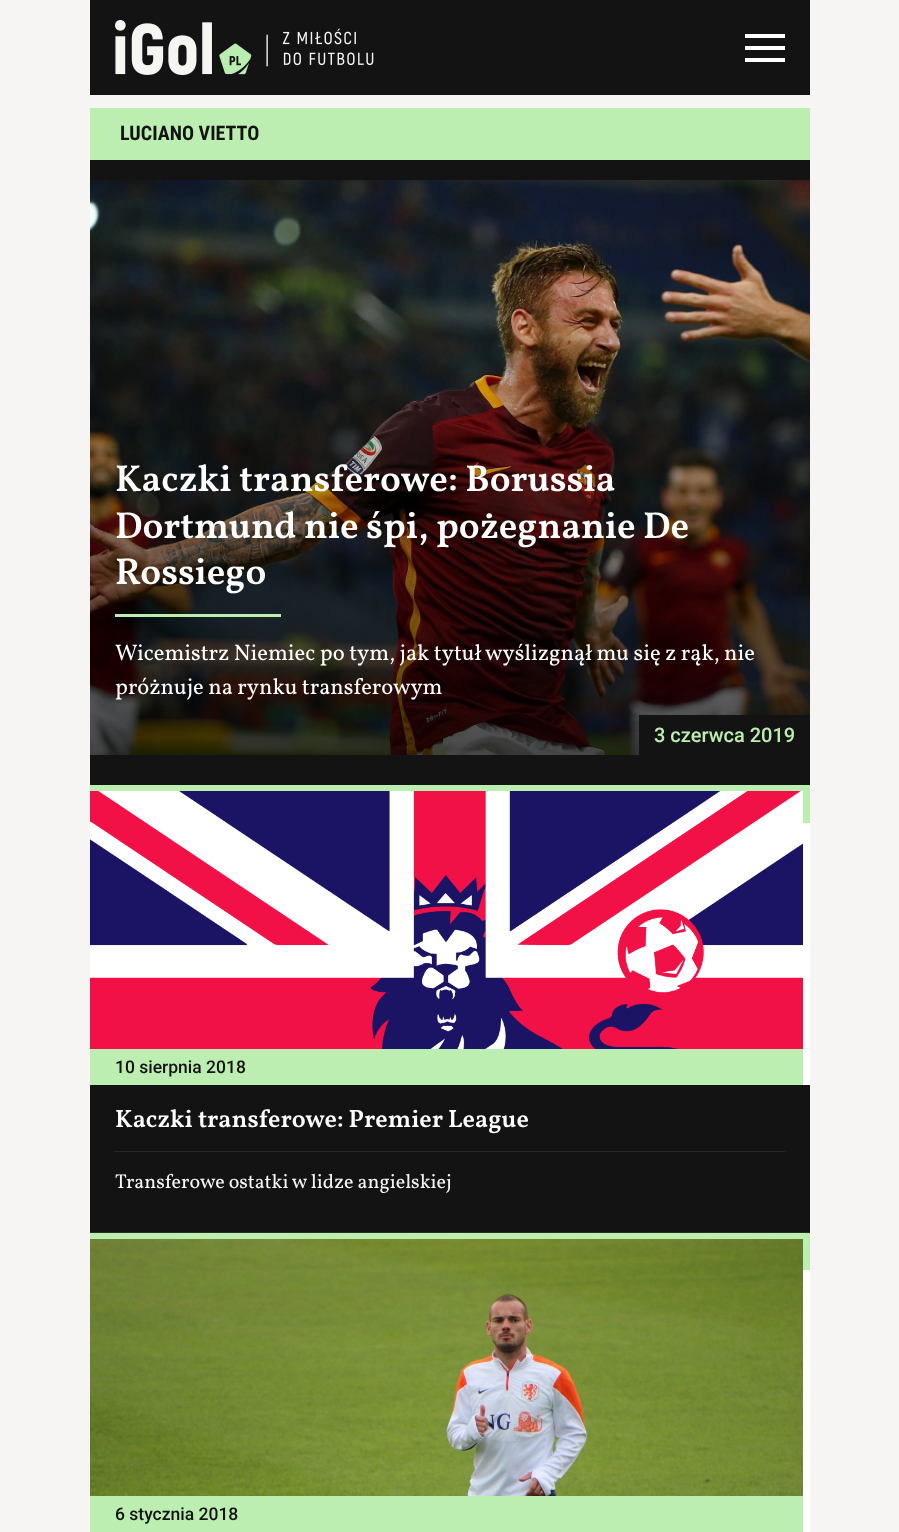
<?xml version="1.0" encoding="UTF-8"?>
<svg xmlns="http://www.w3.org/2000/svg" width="899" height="1532">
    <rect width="100%" height="100%" fill="#F6F5F4"/>
    <rect x="90" y="0" width="720" height="95" fill="#131313"/>
    <image x="115" y="20" width="259" height="55" href="img_01.png"/>
    <path d="M 745 34 H 785 V 38 H 745 Z M 745 46 H 785 V 50 H 745 Z M 745 58 H 785 V 62 H 745 Z" fill="#FFFFFF"/>
    <rect x="90" y="108" width="720" height="52" fill="#BCEEB2"/>
    <text x="120" y="140" font-family="Roboto Condensed" font-size="20" font-weight="700" fill="#131313">LUCIANO VIETTO</text>
    <rect x="90" y="160" width="720" height="1073" fill="#131313"/>
    <image x="90" y="180" width="720" height="575" href="img_02.png"/>
    <text font-family="Vollkorn" font-size="37.5" font-weight="600" fill="#FFFFFF">
        <tspan x="115" y="491">Kaczki transferowe: Borussia</tspan>
        <tspan x="115" y="538">Dortmund nie śpi, pożegnanie De</tspan>
        <tspan x="115" y="584">Rossiego</tspan>
    </text>
    <rect x="115" y="614" width="166" height="3" fill="#BCEEB2"/>
    <text font-family="Vollkorn" font-size="22.5" fill="#FFFFFF">
        <tspan x="115" y="660">Wicemistrz Niemiec po tym, jak tytuł wyślizgnął mu się z rąk, nie</tspan>
        <tspan x="115" y="694">próżnuje na rynku transferowym</tspan>
    </text>
    <rect x="639" y="715" width="171" height="40" fill="#131313"/>
    <text x="654" y="742" font-family="Roboto" font-size="20" font-weight="500" fill="#BCEEB2">3 czerwca 2019</text>
    <rect x="90" y="785" width="720" height="6" fill="#BCEEB2"/>
    <rect x="803" y="785" width="7" height="38" fill="#BCEEB2"/>
    <image x="90" y="791" width="713" height="258" href="img_03.png"/>
    <rect x="90" y="1049" width="713" height="36" fill="#BCEEB2"/>
    <text x="115" y="1073" font-family="Roboto" font-size="17.5" font-weight="500" fill="#131313">10 sierpnia 2018</text>
    <rect x="803" y="823" width="7" height="262" fill="#FFFFFF"/>
    <text x="115" y="1127" font-family="Vollkorn" font-size="25" font-weight="600" fill="#FFFFFF">Kaczki transferowe: Premier League</text>
    <rect x="115" y="1151" width="670" height="1" fill="#282828"/>
    <text x="115" y="1188" font-family="Vollkorn" font-size="20" fill="#F6F5F4">Transferowe ostatki w lidze angielskiej</text>
    <image x="90" y="1232" width="720" height="264" href="img_04.png"/>
    <rect x="90" y="1233" width="720" height="6" fill="#BCEEB2"/>
    <rect x="803" y="1233" width="7" height="37" fill="#BCEEB2"/>
    <rect x="90" y="1496" width="713" height="36" fill="#BCEEB2"/>
    <text x="115" y="1520" font-family="Roboto" font-size="17.5" font-weight="500" fill="#131313">6 stycznia 2018</text>
    <rect x="803" y="1270" width="7" height="262" fill="#FFFFFF"/>
</svg>
